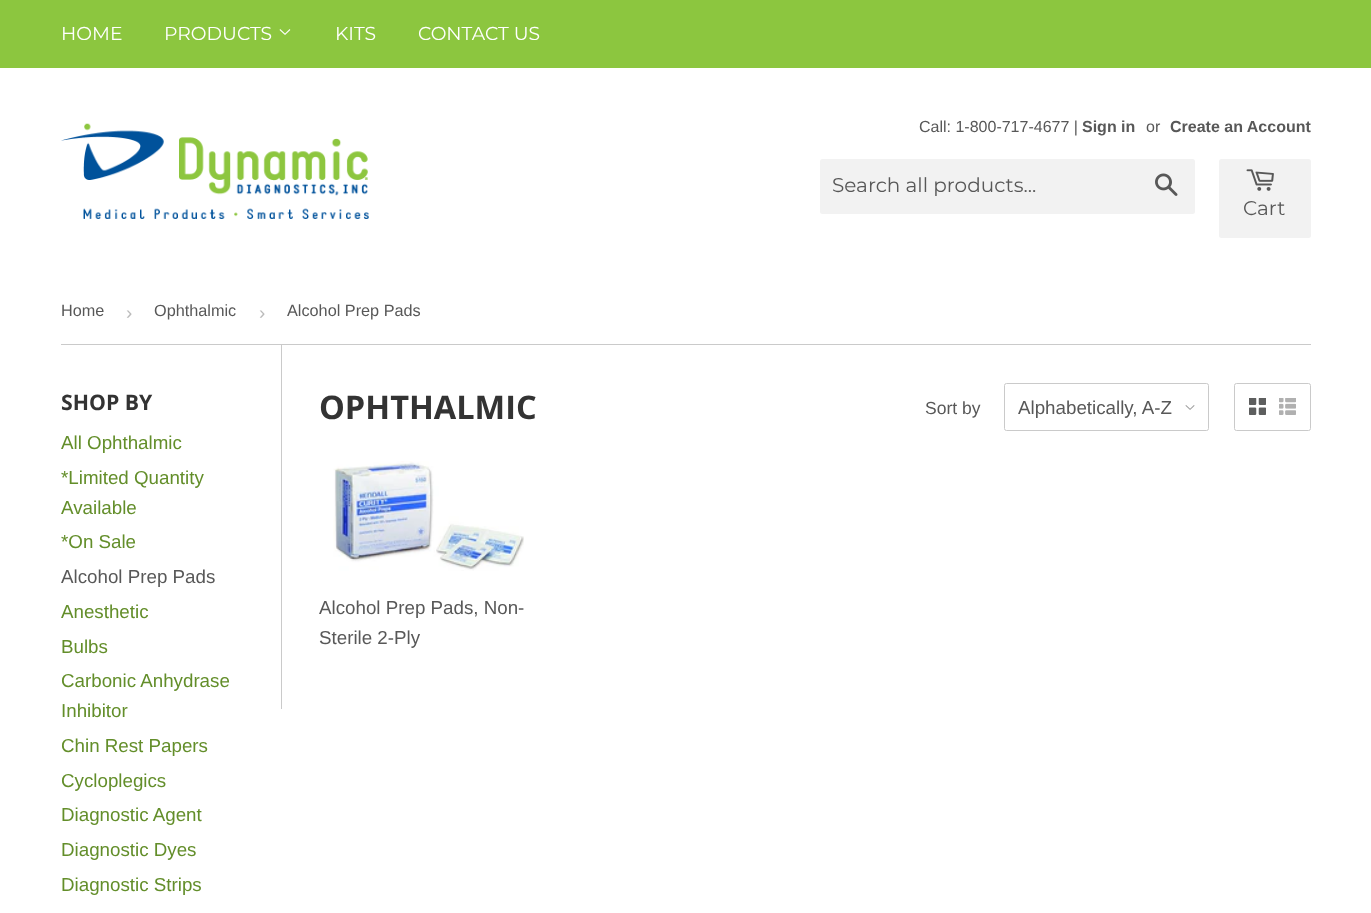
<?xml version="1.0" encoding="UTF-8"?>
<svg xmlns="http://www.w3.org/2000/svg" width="1371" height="913">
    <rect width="100%" height="100%" fill="#FFFFFF"/>
    <rect x="0" y="0" width="1371" height="68" fill="#8CC63F"/>
    <text x="61" y="40" font-family="Montserrat" font-size="18.75" font-weight="100" fill="#FFFFFF">HOME</text>
    <text x="164" y="40" font-family="Montserrat" font-size="18.75" font-weight="100" fill="#FFFFFF">PRODUCTS</text>
    <image x="279" y="29" width="12" height="6" href="img_01.png"/>
    <text x="335" y="40" font-family="Montserrat" font-size="18.75" font-weight="100" fill="#FFFFFF">KITS</text>
    <text x="418" y="40" font-family="Montserrat" font-size="18.75" font-weight="100" fill="#FFFFFF">CONTACT US</text>
    <image x="61" y="123" width="308" height="96" href="img_02.png"/>
    <text x="919" y="132" font-family="Liberation Sans" font-size="16" fill="#585858">Call: 1-800-717-4677 |</text>
    <text x="1082" y="132" font-family="Liberation Sans" font-size="16" font-weight="700" fill="#585858">Sign in</text>
    <text x="1146" y="132" font-family="Liberation Sans" font-size="16" fill="#585858">or</text>
    <text x="1170" y="132" font-family="Liberation Sans" font-size="16" font-weight="700" fill="#585858">Create an Account</text>
    <rect x="820" y="159" width="375" height="55" rx="2.5" fill="#F2F2F2"/>
    <text x="832" y="192" font-family="Montserrat" font-size="20" font-weight="100" fill="#585858">Search all products...</text>
    <image x="1155" y="173" width="23" height="23" href="img_03.png"/>
    <rect x="1219" y="159" width="92" height="79" rx="2.5" fill="#F2F2F2"/>
    <image x="1246" y="169" width="28" height="22" href="img_04.png"/>
    <text x="1243" y="215" font-family="Montserrat" font-size="20" font-weight="100" fill="#585858">Cart</text>
    <rect x="61" y="344" width="1250" height="1" fill="#CACACA"/>
    <text x="61" y="316" font-family="Liberation Sans" font-size="16.25" fill="#585858">Home</text>
    <text x="126" y="319" font-family="Liberation Sans" font-size="18.75" fill="#BBBBBB">›</text>
    <text x="154" y="316" font-family="Liberation Sans" font-size="16.25" fill="#585858">Ophthalmic</text>
    <text x="259" y="319" font-family="Liberation Sans" font-size="18.75" fill="#BBBBBB">›</text>
    <text x="287" y="316" font-family="Liberation Sans" font-size="16.25" fill="#585858">Alcohol Prep Pads</text>
    <text x="61" y="410" font-family="Open Sans" font-size="21.25" font-weight="700" fill="#333333">SHOP BY</text>
    <text font-family="Liberation Sans" font-size="18.75" fill="#638E2A">
        <tspan x="61" y="449">All Ophthalmic</tspan>
        <tspan x="61" y="484">*Limited Quantity</tspan>
        <tspan x="61" y="514">Available</tspan>
        <tspan x="61" y="548">*On Sale</tspan>
    </text>
    <text x="61" y="583" font-family="Liberation Sans" font-size="18.75" fill="#585858">Alcohol Prep Pads</text>
    <text font-family="Liberation Sans" font-size="18.75" fill="#638E2A">
        <tspan x="61" y="618">Anesthetic</tspan>
        <tspan x="61" y="653">Bulbs</tspan>
        <tspan x="61" y="687">Carbonic Anhydrase</tspan>
        <tspan x="61" y="717">Inhibitor</tspan>
        <tspan x="61" y="752">Chin Rest Papers</tspan>
        <tspan x="61" y="787">Cycloplegics</tspan>
        <tspan x="61" y="821">Diagnostic Agent</tspan>
        <tspan x="61" y="856">Diagnostic Dyes</tspan>
        <tspan x="61" y="891">Diagnostic Strips</tspan>
    </text>
    <rect x="281" y="345" width="1" height="364" fill="#CACACA"/>
    <text x="319" y="419" font-family="Open Sans" font-size="32.5" font-weight="700" fill="#333333">OPHTHALMIC</text>
    <text x="925" y="414" font-family="Liberation Sans" font-size="17.5" fill="#585858">Sort by</text>
    <image x="1185" y="405" width="10" height="5" href="img_05.png"/>
    <rect x="1004.5" y="383.5" width="204" height="47" rx="2" fill="none" stroke="#CACACA"/>
    <text x="1018" y="414" font-family="Liberation Sans" font-size="18.75" fill="#585858">Alphabetically, A-Z</text>
    <rect x="1234.5" y="383.5" width="76" height="47" rx="2" fill="none" stroke="#CACACA"/>
    <image x="1249" y="398" width="17" height="17" href="img_06.png"/>
    <image x="1279" y="398" width="17" height="17" href="img_07.png"/>
    <image x="333" y="461" width="191" height="110" href="img_08.png"/>
    <text font-family="Liberation Sans" font-size="18.75" fill="#585858">
        <tspan x="319" y="614">Alcohol Prep Pads, Non-</tspan>
        <tspan x="319" y="644">Sterile 2-Ply</tspan>
    </text>
</svg>
